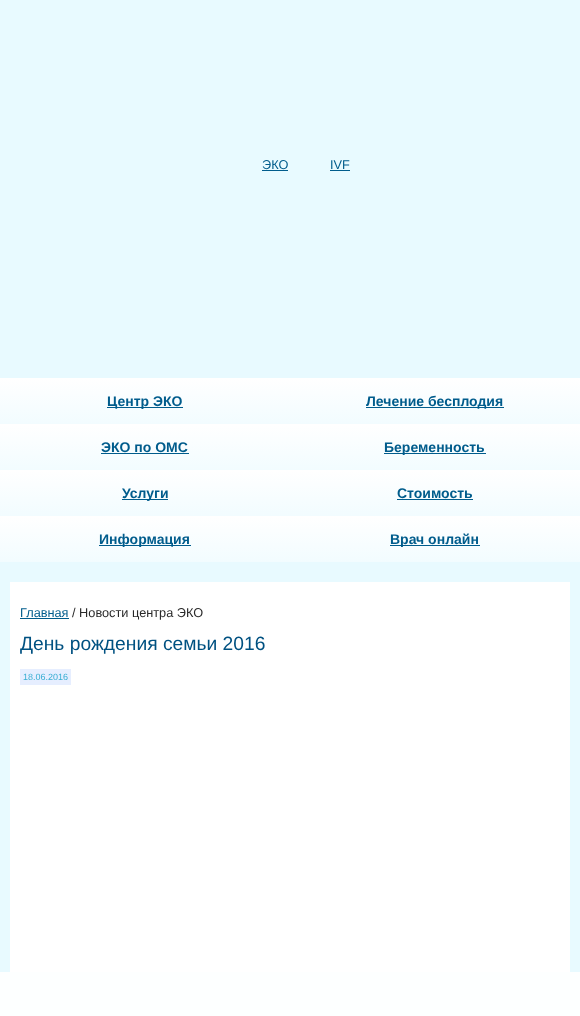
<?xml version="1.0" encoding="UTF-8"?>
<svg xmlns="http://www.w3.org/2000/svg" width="580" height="1016">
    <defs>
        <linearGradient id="g1" gradientUnits="userSpaceOnUse" x1="145" y1="378" x2="145" y2="424"><stop offset="0.01" stop-color="#FFFFFF"/><stop offset="1" stop-color="#F2FCFF"/></linearGradient>
        <linearGradient id="g2" gradientUnits="userSpaceOnUse" x1="435" y1="378" x2="435" y2="424"><stop offset="0.01" stop-color="#FFFFFF"/><stop offset="1" stop-color="#F2FCFF"/></linearGradient>
        <linearGradient id="g3" gradientUnits="userSpaceOnUse" x1="145" y1="424" x2="145" y2="470"><stop offset="0.01" stop-color="#FFFFFF"/><stop offset="1" stop-color="#F2FCFF"/></linearGradient>
        <linearGradient id="g4" gradientUnits="userSpaceOnUse" x1="435" y1="424" x2="435" y2="470"><stop offset="0.01" stop-color="#FFFFFF"/><stop offset="1" stop-color="#F2FCFF"/></linearGradient>
        <linearGradient id="g5" gradientUnits="userSpaceOnUse" x1="145" y1="470" x2="145" y2="516"><stop offset="0.01" stop-color="#FFFFFF"/><stop offset="1" stop-color="#F2FCFF"/></linearGradient>
        <linearGradient id="g6" gradientUnits="userSpaceOnUse" x1="435" y1="470" x2="435" y2="516"><stop offset="0.01" stop-color="#FFFFFF"/><stop offset="1" stop-color="#F2FCFF"/></linearGradient>
        <linearGradient id="g7" gradientUnits="userSpaceOnUse" x1="145" y1="516" x2="145" y2="562"><stop offset="0.01" stop-color="#FFFFFF"/><stop offset="1" stop-color="#F2FCFF"/></linearGradient>
        <linearGradient id="g8" gradientUnits="userSpaceOnUse" x1="435" y1="516" x2="435" y2="562"><stop offset="0.01" stop-color="#FFFFFF"/><stop offset="1" stop-color="#F2FCFF"/></linearGradient>
    </defs>
    <rect width="100%" height="100%" fill="#E8FAFF"/>
    <rect x="0" y="972" width="580" height="44" fill="#FDFFFF"/>
    <text x="262" y="169" font-family="Liberation Sans" font-size="12.75" fill="#005C8C">ЭКО</text>
    <rect x="262" y="170" width="26" height="1" fill="#005C8C"/>
    <text x="330" y="169" font-family="Liberation Sans" font-size="12.75" fill="#005C8C">IVF</text>
    <rect x="330" y="170" width="20" height="1" fill="#005C8C"/>
    <rect x="0" y="378" width="290" height="46" fill="url(#g1)"/>
    <rect x="107" y="407" width="76" height="1" fill="#005C8C"/>
    <text x="107" y="406" font-family="Liberation Sans" font-size="14" font-weight="700" fill="#005C8C">Центр ЭКО</text>
    <rect x="290" y="378" width="290" height="46" fill="url(#g2)"/>
    <rect x="366" y="407" width="138" height="1" fill="#005C8C"/>
    <text x="366" y="406" font-family="Liberation Sans" font-size="14" font-weight="700" fill="#005C8C">Лечение бесплодия</text>
    <rect x="0" y="424" width="290" height="46" fill="url(#g3)"/>
    <text x="101" y="452" font-family="Liberation Sans" font-size="14" font-weight="700" fill="#005C8C">ЭКО по ОМС</text>
    <rect x="101" y="453" width="88" height="1" fill="#005C8C"/>
    <rect x="290" y="424" width="290" height="46" fill="url(#g4)"/>
    <rect x="384" y="453" width="102" height="1" fill="#005C8C"/>
    <text x="384" y="452" font-family="Liberation Sans" font-size="14" font-weight="700" fill="#005C8C">Беременность</text>
    <rect x="0" y="470" width="290" height="46" fill="url(#g5)"/>
    <rect x="122" y="499" width="46" height="1" fill="#005C8C"/>
    <text x="122" y="498" font-family="Liberation Sans" font-size="14" font-weight="700" fill="#005C8C">Услуги</text>
    <rect x="290" y="470" width="290" height="46" fill="url(#g6)"/>
    <text x="397" y="498" font-family="Liberation Sans" font-size="14" font-weight="700" fill="#005C8C">Стоимость</text>
    <rect x="397" y="499" width="76" height="1" fill="#005C8C"/>
    <rect x="0" y="516" width="290" height="46" fill="url(#g7)"/>
    <rect x="99" y="545" width="92" height="1" fill="#005C8C"/>
    <text x="99" y="544" font-family="Liberation Sans" font-size="14" font-weight="700" fill="#005C8C">Информация</text>
    <rect x="290" y="516" width="290" height="46" fill="url(#g8)"/>
    <rect x="390" y="545" width="90" height="1" fill="#005C8C"/>
    <text x="390" y="544" font-family="Liberation Sans" font-size="14" font-weight="700" fill="#005C8C">Врач онлайн</text>
    <rect x="10" y="582" width="560" height="390" fill="#FFFFFF"/>
    <text x="20" y="617" font-family="Liberation Sans" font-size="12.75" fill="#005C8C">Главная</text>
    <rect x="20" y="618" width="49" height="1" fill="#005C8C"/>
    <text x="72" y="617" font-family="Liberation Sans" font-size="12.75" fill="#292929">/ Новости центра ЭКО</text>
    <text x="20" y="650" font-family="Liberation Sans" font-size="19.25" fill="#005181">День рождения семьи 2016</text>
    <rect x="20" y="669" width="51" height="16" fill="#E6EEFF"/>
    <text x="23" y="680" font-family="Liberation Sans" font-size="9" fill="#38AED3">18.06.2016</text>
</svg>
